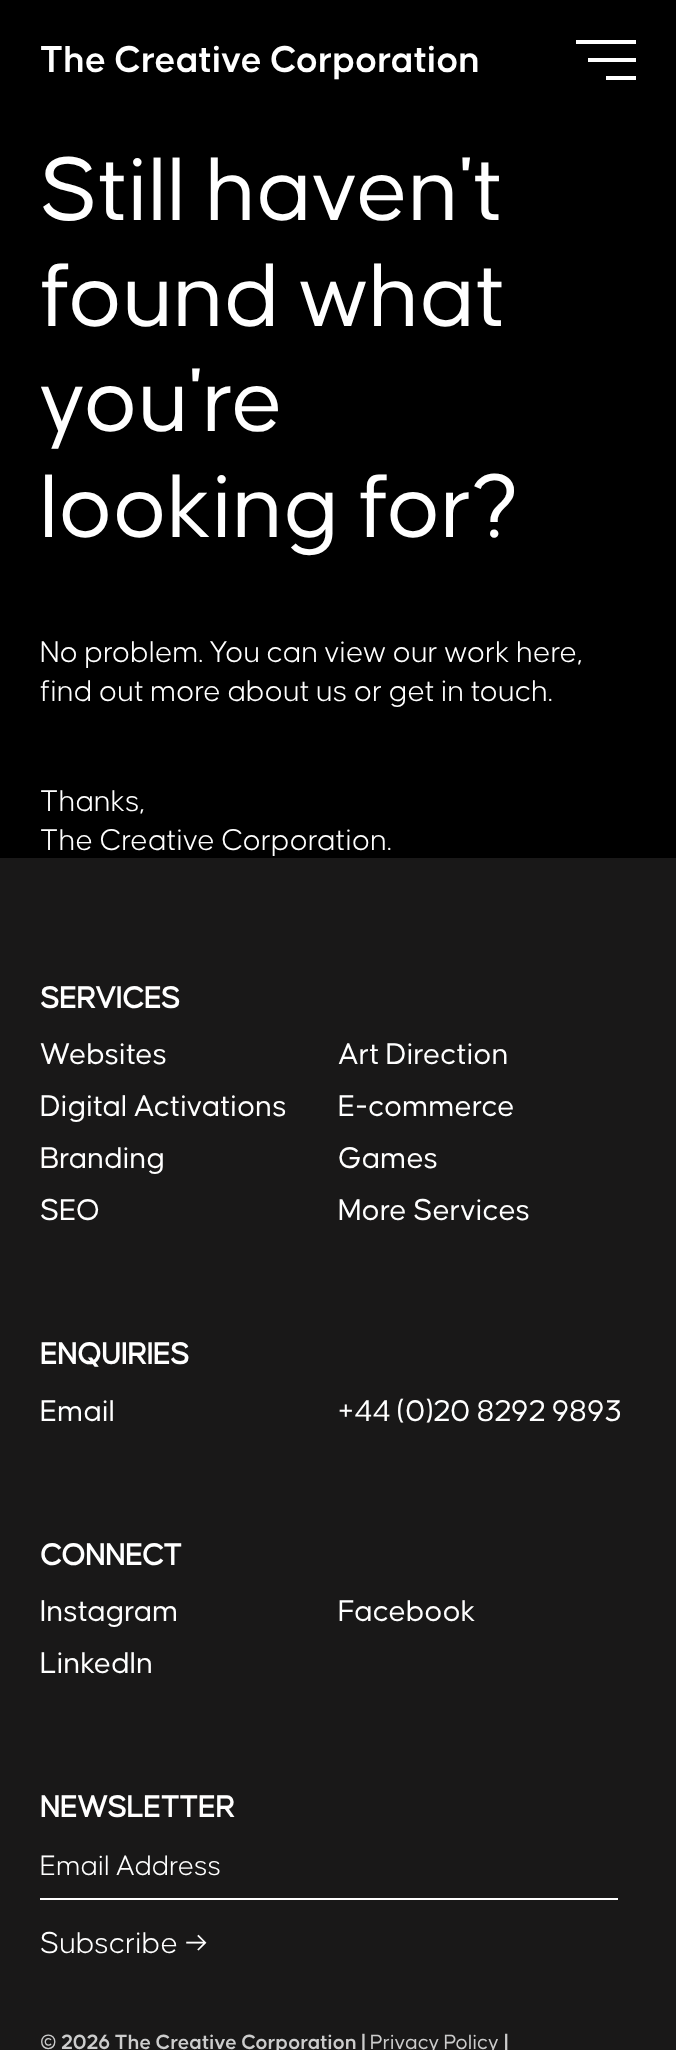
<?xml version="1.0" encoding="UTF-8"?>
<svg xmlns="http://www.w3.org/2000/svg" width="676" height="2050">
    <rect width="100%" height="100%" fill="#000000"/>
    <text x="40" y="72" font-family="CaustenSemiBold" font-size="40" font-weight="600" fill="#FFFFFF">The Creative Corporation</text>
    <rect x="576" y="40" width="60" height="4" fill="#FFFFFF"/>
    <rect x="588" y="58" width="48" height="4" fill="#FFFFFF"/>
    <rect x="606" y="76" width="30" height="4" fill="#FFFFFF"/>
    <text font-family="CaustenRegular" font-size="96" fill="#FFFFFF">
        <tspan x="40" y="220">Still haven't</tspan>
        <tspan x="40" y="326">found what</tspan>
        <tspan x="40" y="431">you're</tspan>
        <tspan x="40" y="537">looking for?</tspan>
    </text>
    <text x="40" y="662" font-family="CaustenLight" font-size="32" font-weight="300" fill="#FFFFFF">No problem. You can view our work here</text>
    <text x="577" y="662" font-family="CaustenLight" font-size="32" font-weight="300" fill="#FFFFFF">,</text>
    <text x="40" y="701" font-family="CaustenLight" font-size="32" font-weight="300" fill="#FFFFFF">find out more about us</text>
    <text x="354" y="701" font-family="CaustenLight" font-size="32" font-weight="300" fill="#FFFFFF">or get in touch</text>
    <text x="548" y="701" font-family="CaustenLight" font-size="32" font-weight="300" fill="#FFFFFF">.</text>
    <text font-family="CaustenLight" font-size="32" font-weight="300" fill="#FFFFFF">
        <tspan x="40" y="811">Thanks,</tspan>
        <tspan x="40" y="850">The Creative Corporation.</tspan>
    </text>
    <rect x="0" y="858" width="676" height="1192" fill="#191818"/>
    <text x="40" y="1008" font-family="CaustenRegular" font-size="32" font-weight="700" fill="#FFFFFF">SERVICES</text>
    <text x="40" y="1064" font-family="CaustenRegular" font-size="32" fill="#FFFFFF">Websites</text>
    <text x="338" y="1064" font-family="CaustenRegular" font-size="32" fill="#FFFFFF">Art Direction</text>
    <text x="40" y="1116" font-family="CaustenRegular" font-size="32" fill="#FFFFFF">Digital Activations</text>
    <text x="338" y="1116" font-family="CaustenRegular" font-size="32" fill="#FFFFFF">E-commerce</text>
    <text x="40" y="1168" font-family="CaustenRegular" font-size="32" fill="#FFFFFF">Branding</text>
    <text x="338" y="1168" font-family="CaustenRegular" font-size="32" fill="#FFFFFF">Games</text>
    <text x="40" y="1220" font-family="CaustenRegular" font-size="32" fill="#FFFFFF">SEO</text>
    <text x="338" y="1220" font-family="CaustenRegular" font-size="32" fill="#FFFFFF">More Services</text>
    <text x="40" y="1364" font-family="CaustenRegular" font-size="32" font-weight="700" fill="#FFFFFF">ENQUIRIES</text>
    <text x="40" y="1421" font-family="CaustenRegular" font-size="32" fill="#FFFFFF">Email</text>
    <text x="338" y="1421" font-family="CaustenRegular" font-size="32" fill="#FFFFFF">+44 (0)20 8292 9893</text>
    <text x="40" y="1565" font-family="CaustenRegular" font-size="32" font-weight="700" fill="#FFFFFF">CONNECT</text>
    <text x="40" y="1621" font-family="CaustenRegular" font-size="32" fill="#FFFFFF">Instagram</text>
    <text x="338" y="1621" font-family="CaustenRegular" font-size="32" fill="#FFFFFF">Facebook</text>
    <text x="40" y="1673" font-family="CaustenRegular" font-size="32" fill="#FFFFFF">LinkedIn</text>
    <text x="40" y="1817" font-family="CaustenRegular" font-size="32" font-weight="700" fill="#FFFFFF">NEWSLETTER</text>
    <rect x="40" y="1898" width="578" height="2" fill="#FFFFFF"/>
    <text x="40" y="1875" font-family="CaustenLight" font-size="30" font-weight="300" fill="#FFFFFF">Email Address</text>
    <text x="40" y="1953" font-family="CaustenLight" font-size="32" font-weight="300" fill="#FFFFFF">Subscribe →</text>
    <text x="40" y="2049" font-family="CaustenSemiBold" font-size="22" font-weight="600" fill="#CCCCCC">© 2026 The Creative Corporation |</text>
    <text x="370" y="2049" font-family="CaustenRegular" font-size="22" fill="#CCCCCC">Privacy Policy</text>
    <text x="504" y="2049" font-family="CaustenSemiBold" font-size="22" font-weight="600" fill="#CCCCCC">|</text>
</svg>
